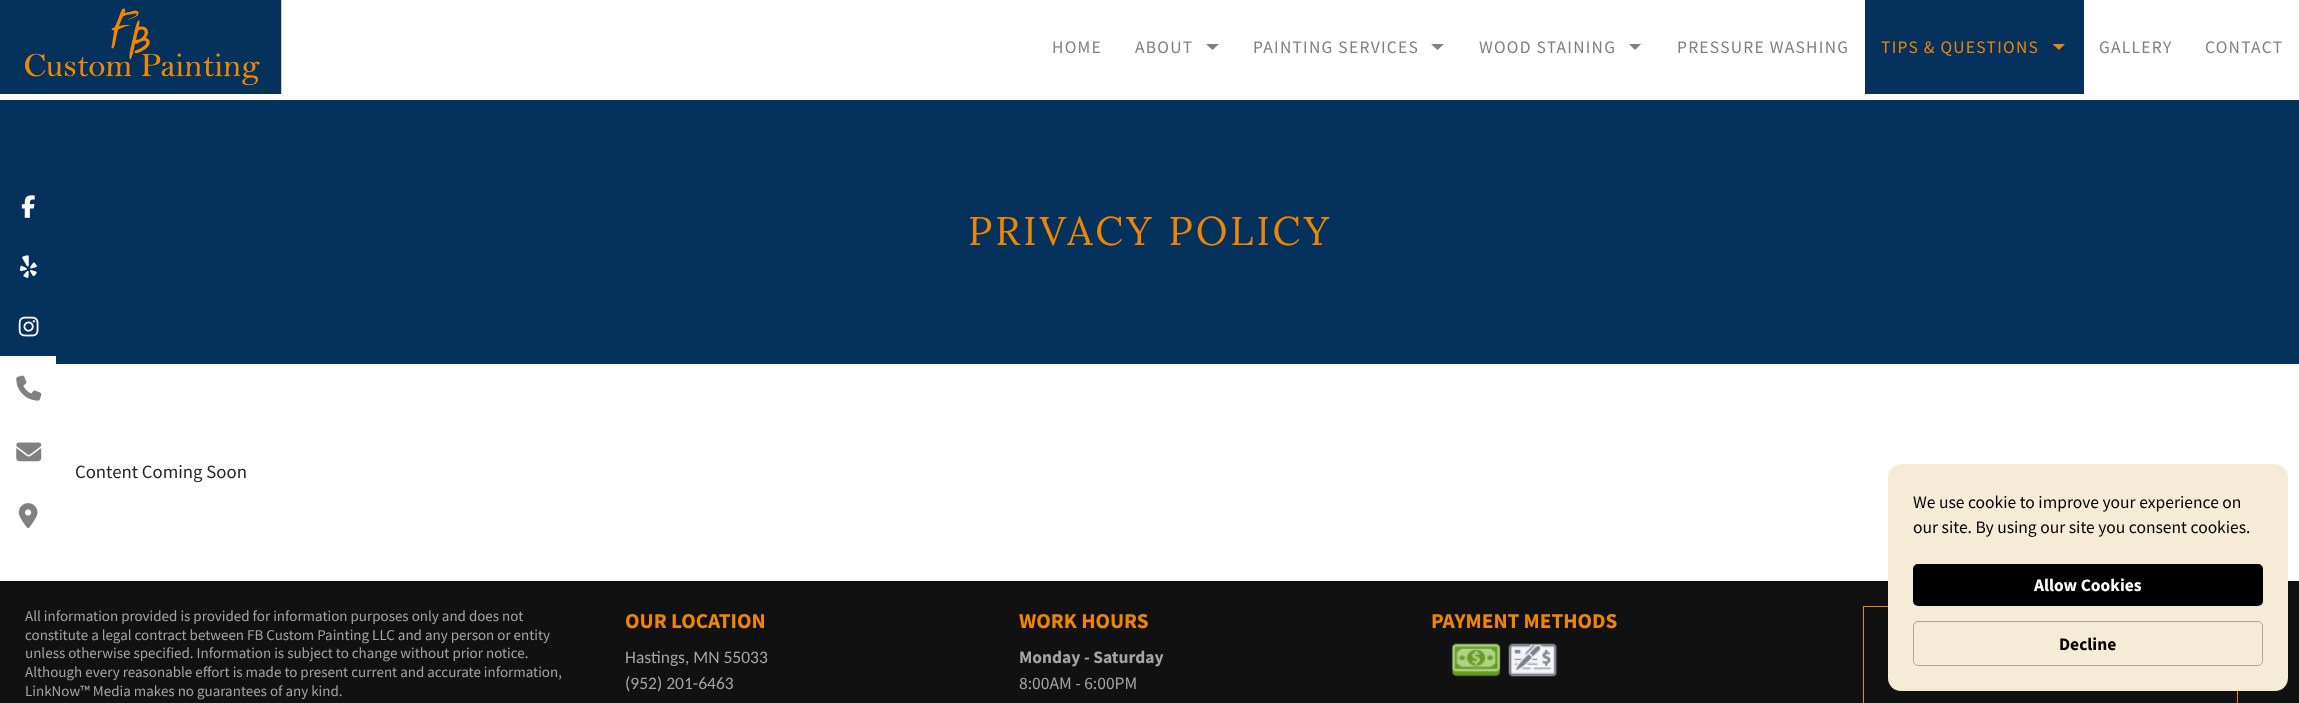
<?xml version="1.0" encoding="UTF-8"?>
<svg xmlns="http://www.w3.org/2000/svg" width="2299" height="703">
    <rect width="100%" height="100%" fill="#FFFFFF"/>
    <rect x="0" y="0" width="281" height="94" fill="#05325C"/>
    <image x="24" y="0" width="258" height="94" href="img_01.png"/>
    <text x="1052" y="53" font-family="Source Sans Pro" font-size="17.5" letter-spacing="1.25" fill="#808080">HOME</text>
    <text x="1135" y="53" font-family="Source Sans Pro" font-size="17.5" letter-spacing="1.25" fill="#808080">ABOUT</text>
    <path d="M 1206 44 H 1219 L 1212.5 50 Z" fill="#808080"/>
    <text x="1253" y="53" font-family="Source Sans Pro" font-size="17.5" letter-spacing="1.25" fill="#808080">PAINTING SERVICES</text>
    <path d="M 1431 44 H 1444 L 1437.5 50 Z" fill="#808080"/>
    <text x="1479" y="53" font-family="Source Sans Pro" font-size="17.5" letter-spacing="1.25" fill="#808080">WOOD STAINING</text>
    <path d="M 1629 44 H 1641 L 1635 50 Z" fill="#808080"/>
    <text x="1677" y="53" font-family="Source Sans Pro" font-size="17.5" letter-spacing="1.25" fill="#808080">PRESSURE WASHING</text>
    <rect x="1865" y="0" width="219" height="94" fill="#05325C"/>
    <text x="1881" y="53" font-family="Source Sans Pro" font-size="17.5" letter-spacing="1.25" fill="#EE8603">TIPS &amp; QUESTIONS</text>
    <path d="M 2052.5 44 H 2065 L 2059 50 Z" fill="#EE8603"/>
    <text x="2099" y="53" font-family="Source Sans Pro" font-size="17.5" letter-spacing="1.25" fill="#808080">GALLERY</text>
    <text x="2205" y="53" font-family="Source Sans Pro" font-size="17.5" letter-spacing="1.25" fill="#808080">CONTACT</text>
    <rect x="0" y="100" width="2299" height="264" fill="#05325C"/>
    <image x="21" y="195" width="14" height="23" href="img_02.png"/>
    <image x="20" y="255" width="17" height="23" href="img_03.png"/>
    <image x="18" y="316" width="21" height="21" href="img_04.png"/>
    <rect x="0" y="356" width="56" height="8" fill="#FFFFFF"/>
    <image x="16" y="375" width="26" height="26" href="img_05.png"/>
    <image x="16" y="442" width="26" height="20" href="img_06.png"/>
    <image x="18" y="503" width="20" height="25" href="img_07.png"/>
    <text x="968" y="245" font-family="Lora" font-size="40" letter-spacing="3.1" fill="#EE8603">PRIVACY POLICY</text>
    <text x="75" y="478" font-family="Source Sans Pro" font-size="18.75" fill="#252525">Content Coming Soon</text>
    <rect x="0" y="581" width="2299" height="122" fill="#111111"/>
    <text font-family="Source Sans Pro" font-size="15" fill="#A4A4A4">
        <tspan x="25" y="621">All information provided is provided for information purposes only and does not</tspan>
        <tspan x="25" y="640">constitute a legal contract between FB Custom Painting LLC and any person or entity</tspan>
        <tspan x="25" y="658">unless otherwise specified. Information is subject to change without prior notice.</tspan>
        <tspan x="25" y="677">Although every reasonable effort is made to present current and accurate information,</tspan>
        <tspan x="25" y="696">LinkNow™ Media makes no guarantees of any kind.</tspan>
    </text>
    <text x="625" y="628" font-family="Source Sans Pro" font-size="21.25" font-weight="700" fill="#EE8603">OUR LOCATION</text>
    <text font-family="Carlito" font-size="17.5" fill="#A4A4A4">
        <tspan x="625" y="663">Hastings, MN 55033</tspan>
        <tspan x="625" y="689">(952) 201-6463</tspan>
    </text>
    <text x="1019" y="628" font-family="Source Sans Pro" font-size="21.25" font-weight="700" fill="#EE8603">WORK HOURS</text>
    <text x="1019" y="663" font-family="Source Sans Pro" font-size="17.5" font-weight="700" fill="#A4A4A4">Monday - Saturday</text>
    <text x="1019" y="689" font-family="Source Sans Pro" font-size="17.5" fill="#A4A4A4">8:00AM - 6:00PM</text>
    <text x="1431" y="628" font-family="Source Sans Pro" font-size="21.25" font-weight="700" fill="#EE8603">PAYMENT METHODS</text>
    <image x="1451" y="643" width="50" height="34" href="img_08.png"/>
    <image x="1508" y="643" width="50" height="34" href="img_09.png"/>
    <rect x="1863.5" y="606.5" width="374" height="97" fill="none" stroke="#EE8603"/>
    <rect x="1888" y="464" width="400" height="227" rx="13" fill="#F6EBD6"/>
    <text font-family="Source Sans Pro" font-size="17.5" fill="#000000">
        <tspan x="1913" y="508">We use cookie to improve your experience on</tspan>
        <tspan x="1913" y="533">our site. By using our site you consent cookies.</tspan>
    </text>
    <rect x="1913" y="564" width="350" height="42" rx="5" fill="#000000"/>
    <text x="2034" y="591" font-family="Source Sans Pro" font-size="17.5" font-weight="700" fill="#FFFFFF">Allow Cookies</text>
    <rect x="1913.5" y="621.5" width="349" height="44" rx="4.5" fill="none" stroke="#ACA596"/>
    <text x="2059" y="650" font-family="Source Sans Pro" font-size="17.5" font-weight="700" fill="#000000">Decline</text>
</svg>
